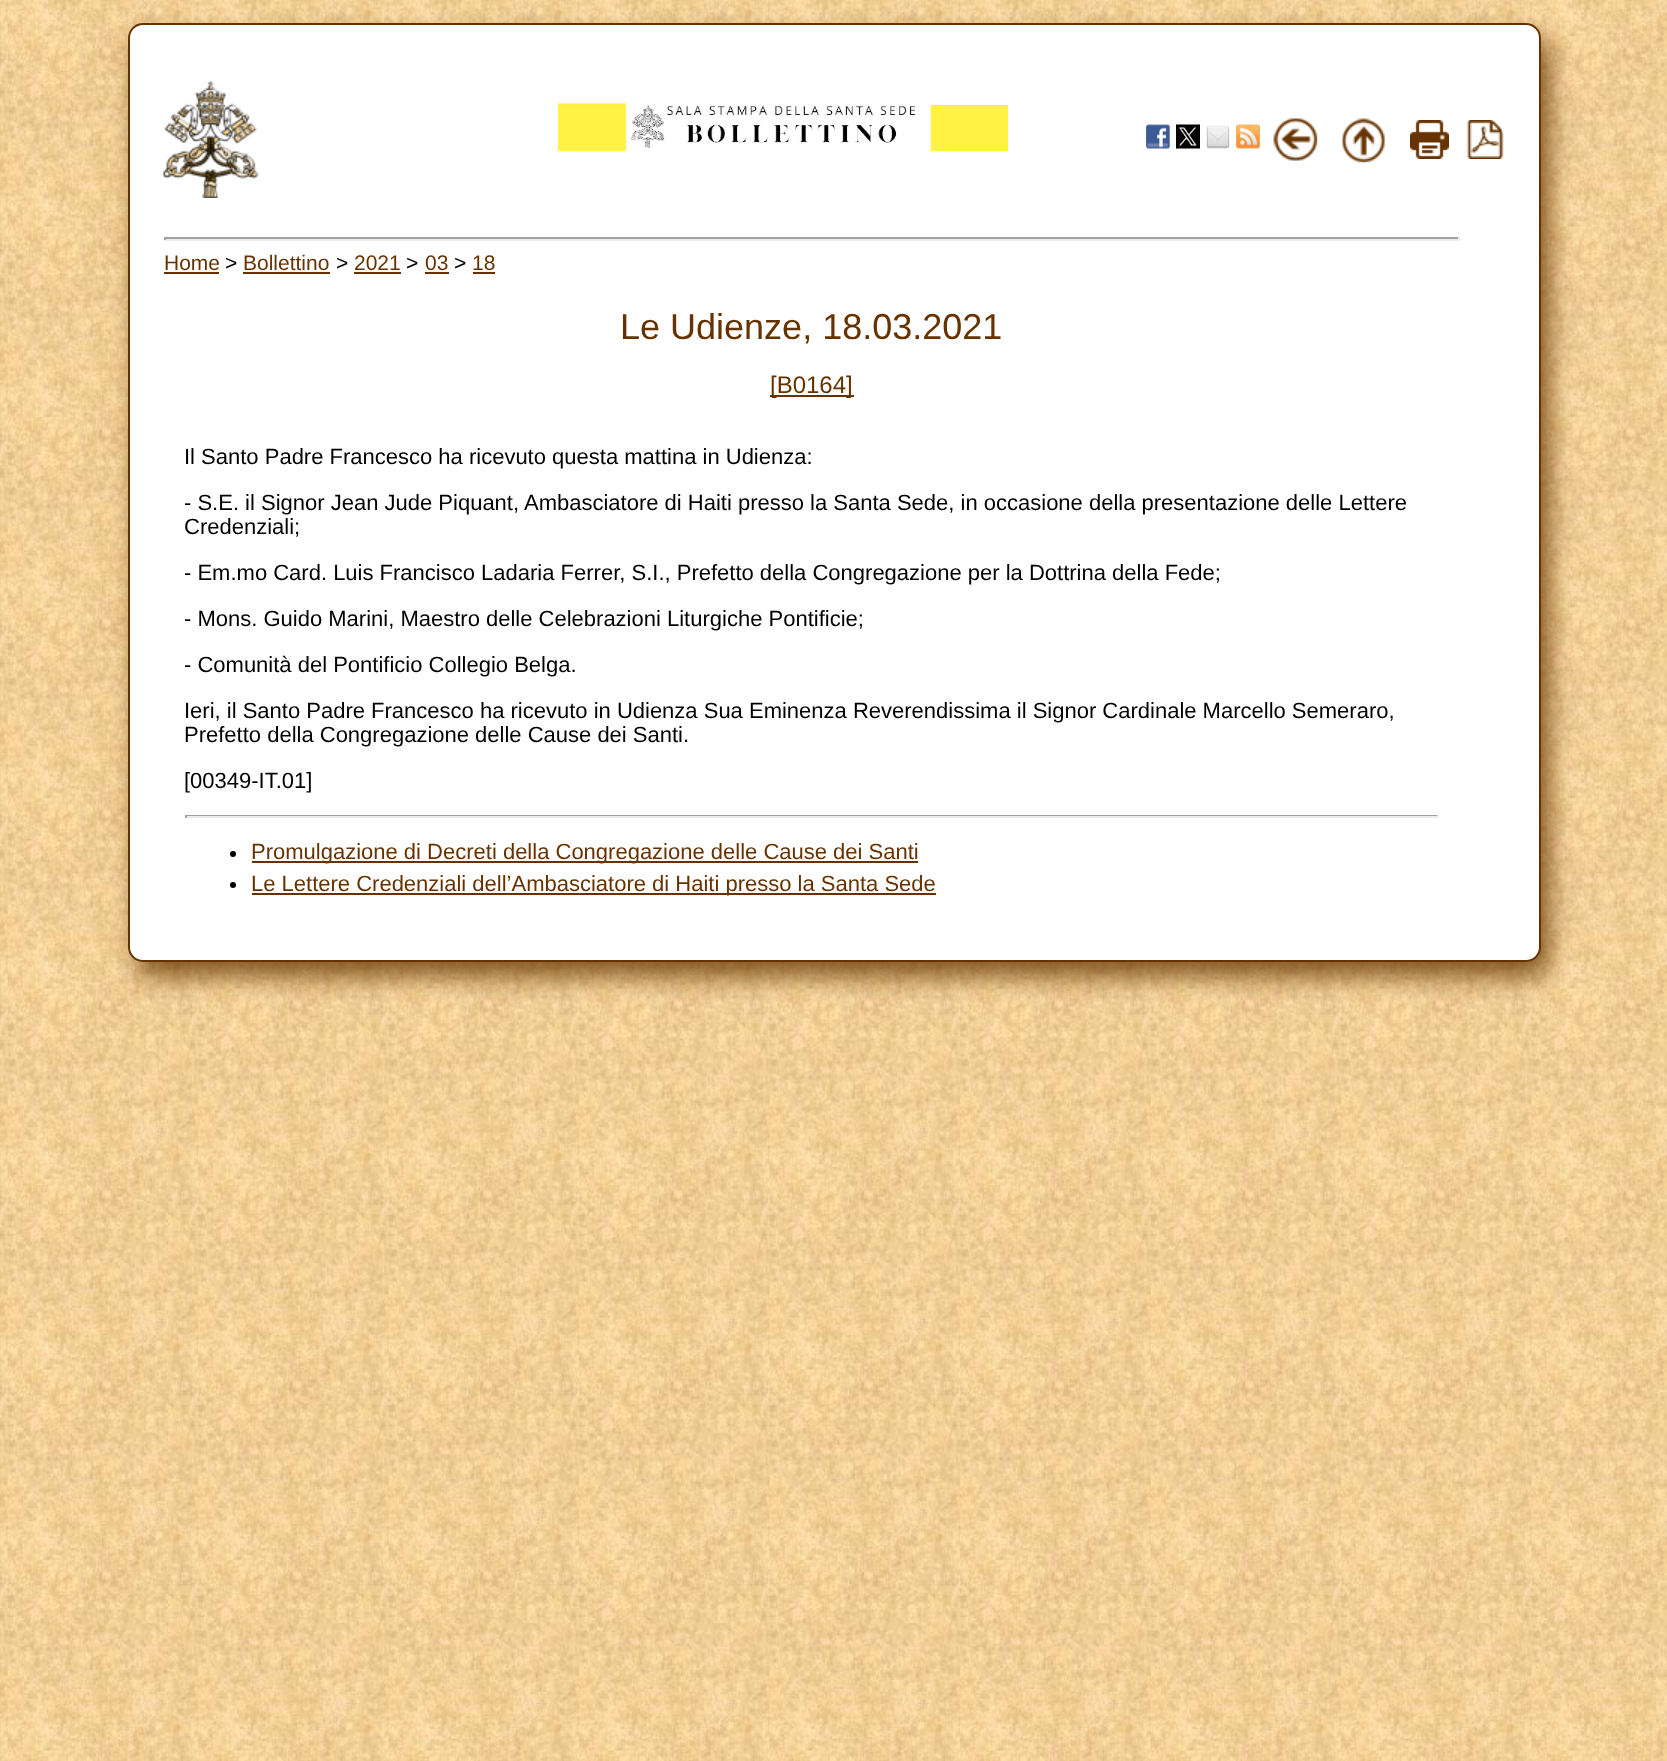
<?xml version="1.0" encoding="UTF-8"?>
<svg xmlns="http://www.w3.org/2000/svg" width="1667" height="1761">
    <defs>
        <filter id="blur1" x="-50%" y="-200%" width="200%" height="500%"><feGaussianBlur stdDeviation="13"/></filter>
    </defs>
    <rect width="100%" height="100%" fill="#FFFFFF"/>
    <image x="0" y="0" width="1667" height="1761" href="img_01.png"/>
    <rect x="137" y="38" width="1413" height="939" rx="15" fill="#663300" fill-opacity="0.8" filter="url(#blur1)"/>
    <rect x="129" y="24" width="1411" height="937" rx="14" fill="#FFFFFF" stroke="#663300" stroke-width="2"/>
    <image x="163" y="81" width="96" height="117" href="img_02.png"/>
    <image x="558" y="103" width="450" height="49" href="img_03.png"/>
    <image x="1146" y="124" width="24" height="25" href="img_04.png"/>
    <image x="1176" y="124" width="24" height="25" href="img_05.png"/>
    <image x="1206" y="125" width="24" height="24" href="img_06.png"/>
    <image x="1236" y="124" width="24" height="25" href="img_07.png"/>
    <image x="1273" y="118" width="45" height="43" href="img_08.png"/>
    <image x="1342" y="118" width="43" height="45" href="img_09.png"/>
    <image x="1410" y="120" width="39" height="39" href="img_10.png"/>
    <image x="1466" y="120" width="38" height="39" href="img_11.png"/>
    <rect x="164" y="237" width="1296" height="2" fill="#9F9F9F"/>
    <rect x="1458" y="237" width="2" height="3" fill="#EEEEEE"/>
    <rect x="164" y="239" width="1296" height="2" fill="#EEEEEE"/>
    <rect x="164" y="237" width="2" height="3" fill="#9F9F9F"/>
    <text x="164" y="270" font-family="Liberation Sans" font-size="21" fill="#663300">Home</text>
    <rect x="164" y="272" width="55" height="2" fill="#663300"/>
    <text x="225" y="270" font-family="Liberation Sans" font-size="21" fill="#000000">&gt;</text>
    <text x="243" y="270" font-family="Liberation Sans" font-size="21" fill="#663300">Bollettino</text>
    <rect x="243" y="272" width="87" height="2" fill="#663300"/>
    <text x="336" y="270" font-family="Liberation Sans" font-size="21" fill="#000000">&gt;</text>
    <text x="354" y="270" font-family="Liberation Sans" font-size="21" fill="#663300">2021</text>
    <rect x="354" y="272" width="47" height="2" fill="#663300"/>
    <text x="406" y="270" font-family="Liberation Sans" font-size="21" fill="#000000">&gt;</text>
    <text x="425" y="270" font-family="Liberation Sans" font-size="21" fill="#663300">03</text>
    <rect x="425" y="272" width="24" height="2" fill="#663300"/>
    <text x="454" y="270" font-family="Liberation Sans" font-size="21" fill="#000000">&gt;</text>
    <text x="472" y="270" font-family="Liberation Sans" font-size="21" fill="#663300">18</text>
    <rect x="473" y="272" width="22" height="2" fill="#663300"/>
    <text x="620" y="339" font-family="Liberation Sans" font-size="36" fill="#663300">Le Udienze, 18.03.2021</text>
    <rect x="770" y="395" width="84" height="2" fill="#663300"/>
    <text x="770" y="393" font-family="Liberation Sans" font-size="24" fill="#663300">[B0164]</text>
    <text x="184" y="464" font-family="Liberation Sans" font-size="22" fill="#000000">Il Santo Padre Francesco ha ricevuto questa mattina in Udienza:</text>
    <text font-family="Liberation Sans" font-size="22" fill="#000000">
        <tspan x="184" y="510">- S.E. il Signor Jean Jude Piquant, Ambasciatore di Haiti presso la Santa Sede, in occasione della presentazione delle Lettere</tspan>
        <tspan x="184" y="534">Credenziali;</tspan>
    </text>
    <text x="184" y="580" font-family="Liberation Sans" font-size="22" fill="#000000">- Em.mo Card. Luis Francisco Ladaria Ferrer, S.I., Prefetto della Congregazione per la Dottrina della Fede;</text>
    <text x="184" y="626" font-family="Liberation Sans" font-size="22" fill="#000000">- Mons. Guido Marini, Maestro delle Celebrazioni Liturgiche Pontificie;</text>
    <text x="184" y="672" font-family="Liberation Sans" font-size="22" fill="#000000">- Comunità del Pontificio Collegio Belga.</text>
    <text font-family="Liberation Sans" font-size="22" fill="#000000">
        <tspan x="184" y="718">Ieri, il Santo Padre Francesco ha ricevuto in Udienza Sua Eminenza Reverendissima il Signor Cardinale Marcello Semeraro,</tspan>
        <tspan x="184" y="742">Prefetto della Congregazione delle Cause dei Santi.</tspan>
    </text>
    <text x="184" y="788" font-family="Liberation Sans" font-size="22" fill="#000000">[00349-IT.01]</text>
    <rect x="185" y="815" width="1254" height="1" fill="#9F9F9F"/>
    <rect x="1437" y="815" width="2" height="3" fill="#EEEEEE"/>
    <rect x="185" y="816" width="1254" height="2" fill="#EEEEEE"/>
    <rect x="185" y="815" width="2" height="3" fill="#9F9F9F"/>
    <circle cx="233" cy="854" r="3" fill="#000000"/>
    <rect x="252" y="861" width="666" height="2" fill="#663300"/>
    <text x="251" y="859" font-family="Liberation Sans" font-size="22" fill="#663300">Promulgazione di Decreti della Congregazione delle Cause dei Santi</text>
    <circle cx="233" cy="885" r="3" fill="#000000"/>
    <rect x="252" y="893" width="684" height="2" fill="#663300"/>
    <text x="251" y="891" font-family="Liberation Sans" font-size="22" fill="#663300">Le Lettere Credenziali dell’Ambasciatore di Haiti presso la Santa Sede</text>
</svg>
